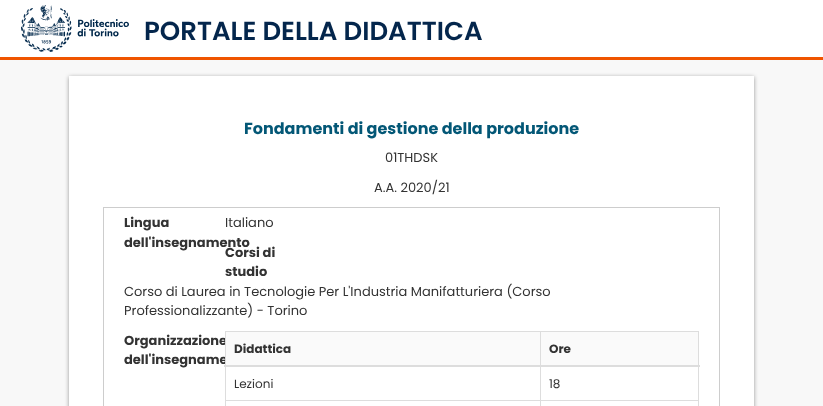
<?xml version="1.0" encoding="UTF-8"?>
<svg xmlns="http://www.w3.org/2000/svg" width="823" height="406">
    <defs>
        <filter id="blur1" x="-50%" y="-200%" width="200%" height="500%"><feGaussianBlur stdDeviation="2"/></filter>
    </defs>
    <rect width="100%" height="100%" fill="#FFFFFF"/>
    <rect x="0" y="57" width="823" height="3" fill="#EF5400"/>
    <image x="21" y="5" width="108" height="47" href="img_01.png"/>
    <text x="144" y="40" font-family="Poppins" font-size="26" font-weight="600" fill="#04264C">PORTALE DELLA DIDATTICA</text>
    <rect x="0" y="60" width="823" height="346" fill="#F8F8F8"/>
    <rect x="69" y="77" width="685" height="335" fill="#000000" fill-opacity="0.4" filter="url(#blur1)"/>
    <rect x="69" y="76" width="685" height="330" fill="#FFFFFF"/>
    <text x="244" y="134" font-family="Poppins" font-size="16" font-weight="700" fill="#035776">Fondamenti di gestione della produzione</text>
    <text x="385" y="162" font-family="Poppins" font-size="13" fill="#333333">01THDSK</text>
    <text x="374" y="192" font-family="Poppins" font-size="13" fill="#333333">A.A. 2020/21</text>
    <rect x="103.5" y="207.5" width="616" height="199" fill="none" stroke="#CDCDCD"/>
    <text font-family="Poppins" font-size="13" font-weight="700" fill="#333333">
        <tspan x="124" y="227">Lingua</tspan>
        <tspan x="124" y="247">dell'insegnamento</tspan>
    </text>
    <text x="225" y="227" font-family="Poppins" font-size="13" fill="#333333">Italiano</text>
    <text font-family="Poppins" font-size="13" font-weight="700" fill="#333333">
        <tspan x="225" y="257">Corsi di</tspan>
        <tspan x="225" y="276">studio</tspan>
    </text>
    <text font-family="Poppins" font-size="13" fill="#333333">
        <tspan x="124" y="296">Corso di Laurea in Tecnologie Per L'Industria Manifatturiera (Corso</tspan>
        <tspan x="124" y="315">Professionalizzante) - Torino</tspan>
    </text>
    <text font-family="Poppins" font-size="13" font-weight="700" fill="#333333">
        <tspan x="124" y="345">Organizzazione</tspan>
        <tspan x="124" y="364">dell'insegname</tspan>
    </text>
    <rect x="225" y="331" width="474" height="1" fill="#DDDDDD"/>
    <rect x="698" y="331" width="1" height="75" fill="#DDDDDD"/>
    <rect x="225" y="331" width="1" height="75" fill="#DDDDDD"/>
    <rect x="226" y="332" width="472" height="33" fill="#FAFAFA"/>
    <text x="234" y="353" font-family="Poppins" font-size="12" font-weight="700" fill="#333333">Didattica</text>
    <rect x="540" y="400" width="159" height="1" fill="#DDDDDD"/>
    <rect x="540" y="400" width="1" height="6" fill="#DDDDDD"/>
    <rect x="225" y="400" width="316" height="1" fill="#DDDDDD"/>
    <rect x="540" y="331" width="1" height="70" fill="#DDDDDD"/>
    <rect x="224" y="365" width="476" height="2" fill="#DDDDDD"/>
    <text x="549" y="353" font-family="Poppins" font-size="12" font-weight="700" fill="#333333">Ore</text>
    <text x="234" y="388" font-family="Poppins" font-size="12" fill="#333333">Lezioni</text>
    <text x="549" y="388" font-family="Poppins" font-size="12" fill="#333333">18</text>
</svg>
